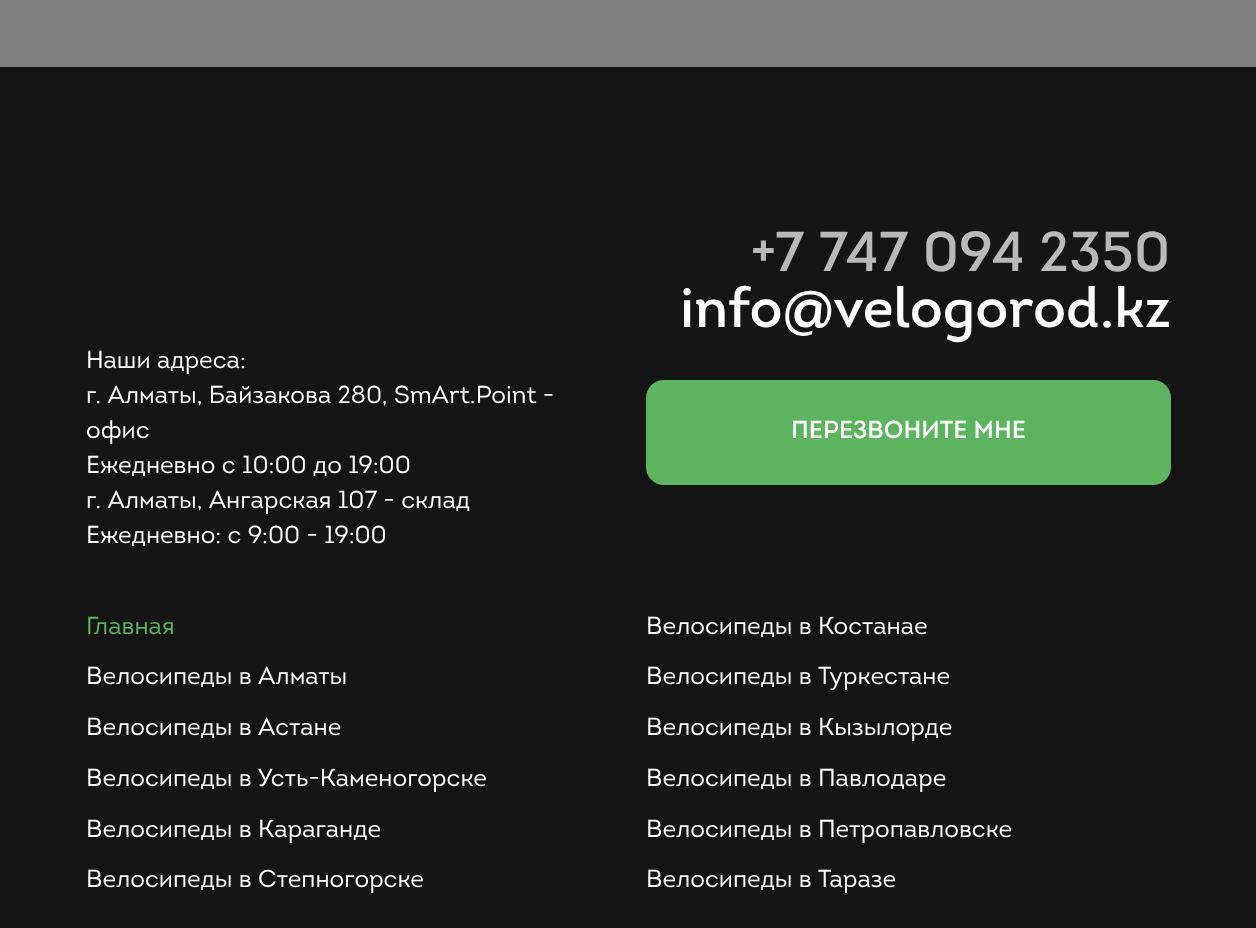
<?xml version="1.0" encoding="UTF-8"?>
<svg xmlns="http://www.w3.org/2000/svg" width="1256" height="928">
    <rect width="100%" height="100%" fill="#151515"/>
    <rect x="0" y="0" width="1256" height="67" fill="#808080"/>
    <text x="750" y="271" font-family="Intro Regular" font-size="56" fill="#B9B9B9">+7 747 094 2350</text>
    <text x="680" y="327" font-family="Intro Regular" font-size="56" fill="#FFFFFF">info@velogorod.kz</text>
    <text font-family="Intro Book" font-size="24.5" fill="#FFFFFF">
        <tspan x="86" y="368">Наши адреса:</tspan>
        <tspan x="86" y="403">г. Алматы, Байзакова 280, SmArt.Point -</tspan>
        <tspan x="86" y="438">офис</tspan>
        <tspan x="86" y="473">Ежедневно с 10:00 до 19:00</tspan>
        <tspan x="86" y="508">г. Алматы, Ангарская 107 - склад</tspan>
        <tspan x="86" y="543">Ежедневно: с 9:00 - 19:00</tspan>
    </text>
    <rect x="646" y="380" width="525" height="105" rx="18" fill="#5CB45E"/>
    <text x="791" y="438" font-family="Intro Regular" font-size="24.5" fill="#FFFFFF">ПЕРЕЗВОНИТЕ МНЕ</text>
    <text x="86" y="634" font-family="Intro Book" font-size="24.5" fill="#5CB45E">Главная</text>
    <text x="646" y="634" font-family="Intro Book" font-size="24.5" fill="#FFFFFF">Велосипеды в Костанае</text>
    <text x="86" y="684" font-family="Intro Book" font-size="24.5" fill="#FFFFFF">Велосипеды в Алматы</text>
    <text x="646" y="684" font-family="Intro Book" font-size="24.5" fill="#FFFFFF">Велосипеды в Туркестане</text>
    <text x="86" y="735" font-family="Intro Book" font-size="24.5" fill="#FFFFFF">Велосипеды в Астане</text>
    <text x="646" y="735" font-family="Intro Book" font-size="24.5" fill="#FFFFFF">Велосипеды в Кызылорде</text>
    <text x="86" y="786" font-family="Intro Book" font-size="24.5" fill="#FFFFFF">Велосипеды в Усть-Каменогорске</text>
    <text x="646" y="786" font-family="Intro Book" font-size="24.5" fill="#FFFFFF">Велосипеды в Павлодаре</text>
    <text x="86" y="837" font-family="Intro Book" font-size="24.5" fill="#FFFFFF">Велосипеды в Караганде</text>
    <text x="646" y="837" font-family="Intro Book" font-size="24.5" fill="#FFFFFF">Велосипеды в Петропавловске</text>
    <text x="86" y="887" font-family="Intro Book" font-size="24.5" fill="#FFFFFF">Велосипеды в Степногорске</text>
    <text x="646" y="887" font-family="Intro Book" font-size="24.5" fill="#FFFFFF">Велосипеды в Таразе</text>
</svg>
